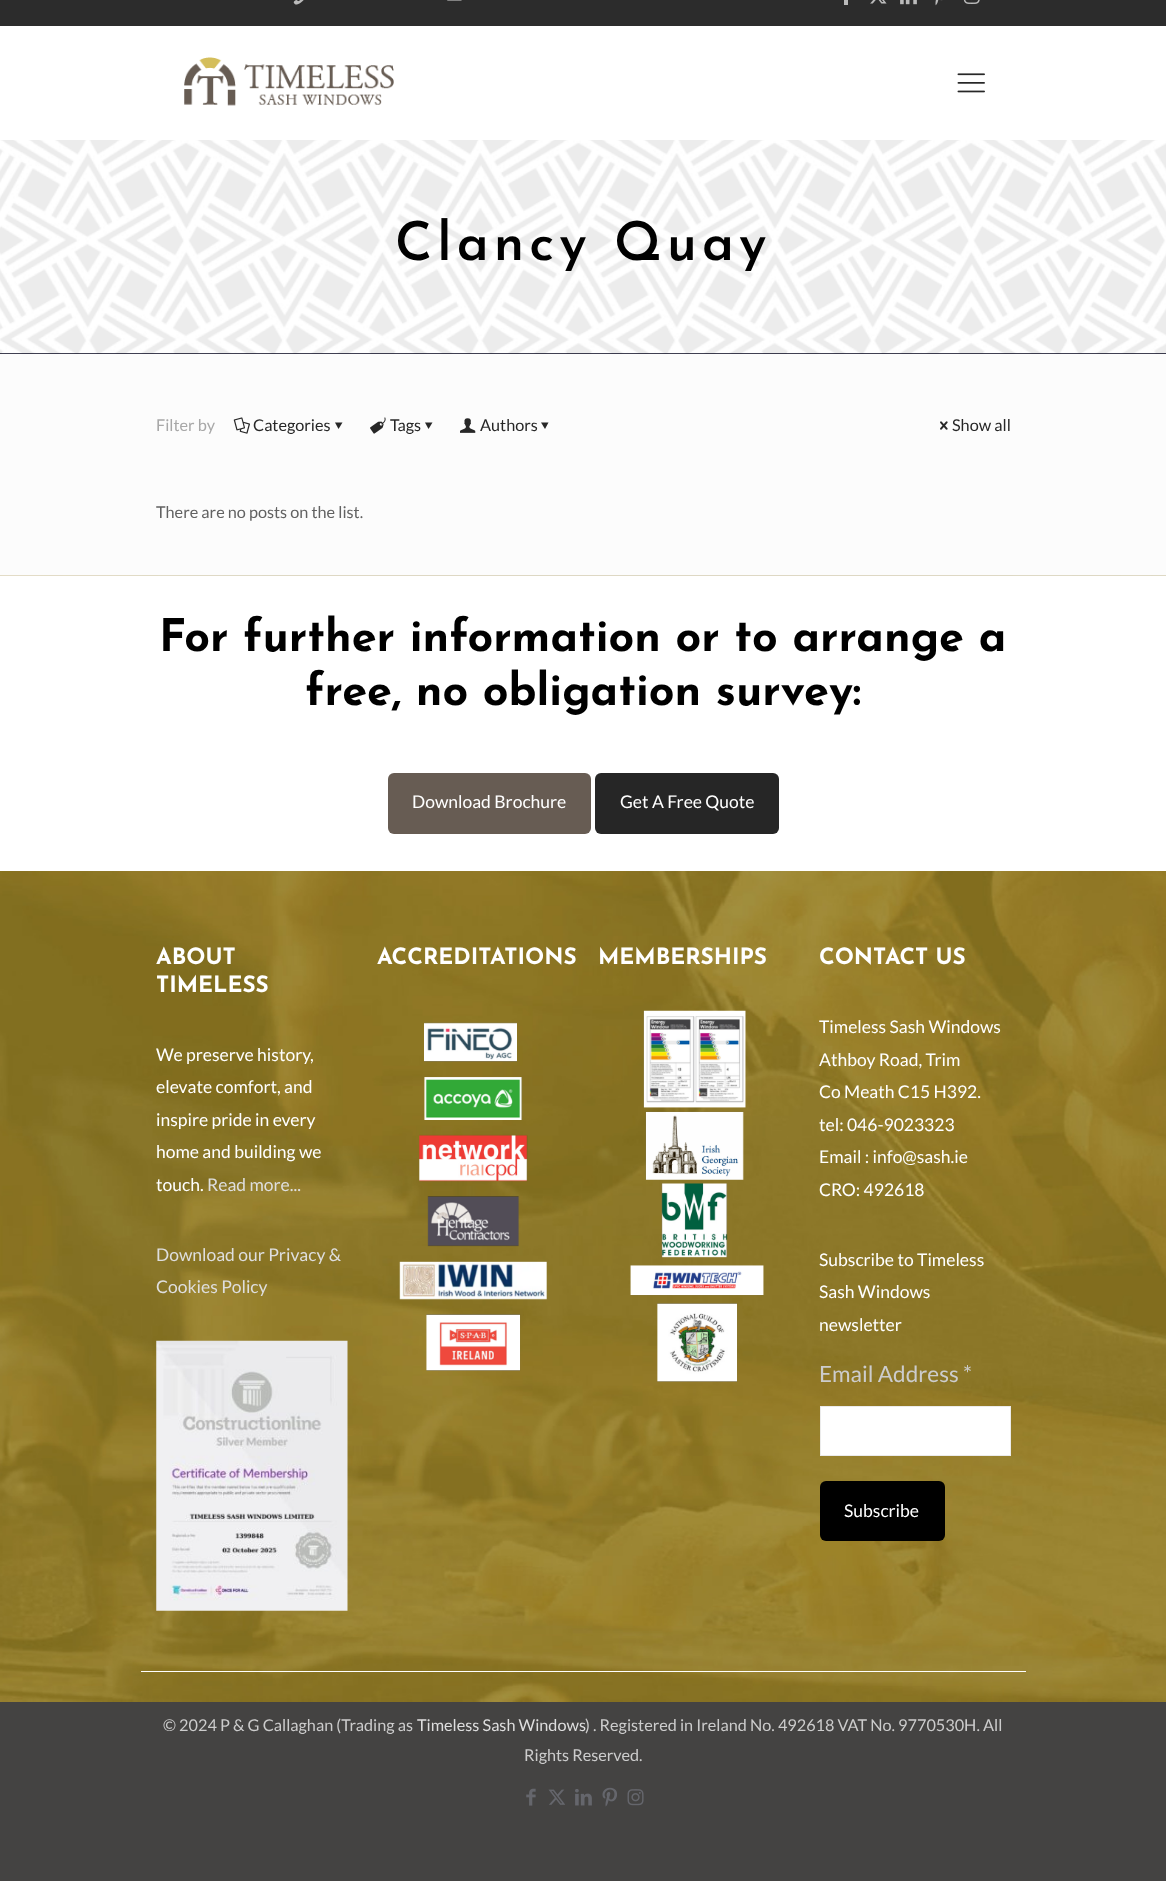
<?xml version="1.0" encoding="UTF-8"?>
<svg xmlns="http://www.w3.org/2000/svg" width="1166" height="1881">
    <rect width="100%" height="100%" fill="#FCFCFC"/>
    <rect x="0" y="353" width="1166" height="1" fill="#000119"/>
    <image x="0" y="140" width="1166" height="214" href="img_01.png"/>
    <rect x="0" y="0" width="1166" height="26" fill="#2C2C2C"/>
    <image x="293" y="0" width="11" height="5" href="img_02.png"/>
    <image x="447" y="0" width="15" height="1" href="img_03.png"/>
    <rect x="844" y="0" width="4" height="5" fill="#BBBBBB"/>
    <image x="870" y="0" width="17" height="4" href="img_04.png"/>
    <image x="900" y="0" width="17" height="5" href="img_05.png"/>
    <image x="935" y="0" width="8" height="6" href="img_06.png"/>
    <image x="963" y="0" width="17" height="4" href="img_07.png"/>
    <rect x="0" y="26" width="1166" height="114" fill="#FFFFFF"/>
    <image x="184" y="57" width="210" height="49" href="img_08.png"/>
    <image x="957" y="73" width="28" height="20" href="img_09.png"/>
    <text x="395" y="260" font-family="Josefin Sans" font-size="53.75" font-weight="600" letter-spacing="5" fill="#000000">Clancy Quay</text>
    <text x="156" y="431" font-family="Lato" font-size="16.25" fill="#A8A8A8">Filter by</text>
    <image x="233" y="417" width="17" height="17" href="img_10.png"/>
    <text x="253" y="431" font-family="Lato" font-size="16.25" fill="#272727">Categories</text>
    <path d="M 342.5 422.5 L 338.5 429 L 335 422.5 Z" fill="#272727"/>
    <image x="370" y="417" width="16" height="17" href="img_11.png"/>
    <text x="390" y="431" font-family="Lato" font-size="16.25" fill="#272727">Tags</text>
    <path d="M 432.5 422.5 L 428.5 429 L 425 422.5 Z" fill="#272727"/>
    <image x="460" y="418" width="16" height="15" href="img_12.png"/>
    <text x="480" y="431" font-family="Lato" font-size="16.25" fill="#272727">Authors</text>
    <path d="M 548.5 422.5 L 545 429 L 541 422.5 Z" fill="#272727"/>
    <image x="940" y="421" width="8" height="9" href="img_13.png"/>
    <text x="952" y="431" font-family="Lato" font-size="16.25" fill="#272727">Show all</text>
    <text x="156" y="518" font-family="Lato" font-size="16.25" fill="#626262">There are no posts on the list.</text>
    <rect x="0" y="1702" width="1166" height="179" fill="#444342"/>
    <image x="0" y="575" width="1166" height="1127" href="img_14.png"/>
    <rect x="0" y="576" width="1166" height="295" fill="#FFFFFF"/>
    <text x="159" y="651" font-family="Josefin Sans" font-size="45" font-weight="700" fill="#000000">For further information or to arrange a</text>
    <text x="305" y="705" font-family="Josefin Sans" font-size="45" font-weight="700" fill="#000000">free, no obligation survey:</text>
    <rect x="388" y="773" width="203" height="61" rx="6" fill="#675C53"/>
    <text x="412" y="808" font-family="Lato" font-size="17.5" fill="#FFFFFF">Download Brochure</text>
    <rect x="595" y="773" width="184" height="61" rx="6" fill="#262626"/>
    <text x="620" y="808" font-family="Lato" font-size="17.5" fill="#FFFFFF">Get A Free Quote</text>
    <text font-family="Josefin Sans" font-size="22.5" font-weight="700" fill="#FFFFFF">
        <tspan x="156" y="964">ABOUT</tspan>
        <tspan x="156" y="992">TIMELESS</tspan>
    </text>
    <text font-family="Lato" font-size="17.5" fill="#FFFFFF">
        <tspan x="156" y="1061">We preserve history,</tspan>
        <tspan x="156" y="1093">elevate comfort, and</tspan>
        <tspan x="156" y="1126">inspire pride in every</tspan>
        <tspan x="156" y="1158">home and building we</tspan>
        <tspan x="156" y="1191">touch.</tspan>
    </text>
    <text x="207" y="1191" font-family="Lato" font-size="17.5" fill="#DEDEDE">Read more...</text>
    <text font-family="Lato" font-size="17.5" fill="#DEDEDE">
        <tspan x="156" y="1261">Download our Privacy &amp;</tspan>
        <tspan x="156" y="1293">Cookies Policy</tspan>
    </text>
    <image x="156" y="1340" width="192" height="271" href="img_15.png"/>
    <text x="377" y="964" font-family="Josefin Sans" font-size="22.5" font-weight="700" fill="#FFFFFF">ACCREDITATIONS</text>
    <image x="399" y="1022" width="148" height="349" href="img_16.png"/>
    <text x="598" y="964" font-family="Josefin Sans" font-size="22.5" font-weight="700" fill="#FFFFFF">MEMBERSHIPS</text>
    <image x="630" y="1010" width="134" height="372" href="img_17.png"/>
    <text x="819" y="964" font-family="Josefin Sans" font-size="22.5" font-weight="700" fill="#FFFFFF">CONTACT US</text>
    <text font-family="Lato" font-size="17.5" fill="#FFFFFF">
        <tspan x="819" y="1033">Timeless Sash Windows</tspan>
        <tspan x="819" y="1066">Athboy Road, Trim</tspan>
        <tspan x="819" y="1098">Co Meath C15 H392.</tspan>
        <tspan x="819" y="1131">tel: 046-9023323</tspan>
        <tspan x="819" y="1163">Email : info@sash.ie</tspan>
        <tspan x="819" y="1196">CRO: 492618</tspan>
    </text>
    <text font-family="Lato" font-size="17.5" fill="#FFFFFF">
        <tspan x="819" y="1266">Subscribe to Timeless</tspan>
        <tspan x="819" y="1298">Sash Windows</tspan>
        <tspan x="819" y="1331">newsletter</tspan>
    </text>
    <text x="819" y="1382" font-family="Lato" font-size="22.5" fill="#CCCCCC">Email Address *</text>
    <rect x="820.5" y="1406.5" width="190" height="49" fill="#FFFFFF" stroke="#EBEBEB"/>
    <rect x="820" y="1481" width="125" height="60" rx="6" fill="#000000"/>
    <text x="844" y="1517" font-family="Lato" font-size="17.5" fill="#FFFFFF">Subscribe</text>
    <rect x="141" y="1671" width="885" height="1" fill="#FFFFFF"/>
    <text x="163" y="1731" font-family="Lato" font-size="16.25" fill="#CCCCCC">© 2024 P &amp; G Callaghan (Trading as</text>
    <text x="417" y="1731" font-family="Lato" font-size="16.25" fill="#DEDEDE">Timeless Sash Windows</text>
    <text x="585" y="1731" font-family="Lato" font-size="16.25" fill="#CCCCCC">) . Registered in Ireland No. 492618 VAT No. 9770530H. All</text>
    <text x="524" y="1761" font-family="Lato" font-size="16.25" fill="#CCCCCC">Rights Reserved.</text>
    <image x="526" y="1788" width="10" height="18" href="img_18.png"/>
    <image x="548" y="1789" width="17" height="16" href="img_19.png"/>
    <image x="575" y="1789" width="17" height="17" href="img_20.png"/>
    <image x="602" y="1787" width="15" height="20" href="img_21.png"/>
    <image x="627" y="1789" width="17" height="17" href="img_22.png"/>
</svg>
